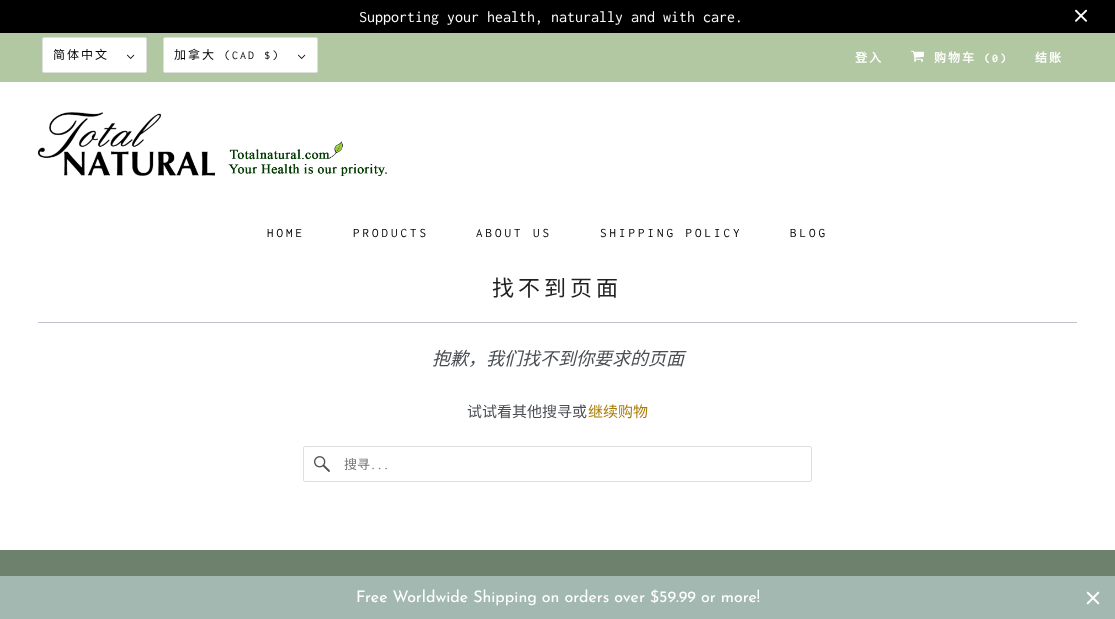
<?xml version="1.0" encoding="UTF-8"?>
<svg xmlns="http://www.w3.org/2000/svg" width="1115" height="619">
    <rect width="100%" height="100%" fill="#FFFFFF"/>
    <rect x="0" y="0" width="1115" height="33" fill="#000000"/>
    <text x="359" y="22" font-family="Inconsolata" font-size="16" fill="#FFFFFF">Supporting your health, naturally and with care.</text>
    <image x="1075" y="9" width="12" height="13" href="img_01.png"/>
    <rect x="0" y="33" width="1115" height="49" fill="#B2C8A3"/>
    <rect x="42.5" y="37.5" width="104" height="35" rx="1.5" fill="#FFFFFF" stroke="#DFDFDF"/>
    <text x="53" y="59" font-family="Noto Sans CJK SC" font-size="12" letter-spacing="2" fill="#000000">简体中文</text>
    <image x="127" y="54" width="8" height="5" href="img_02.png"/>
    <rect x="163.5" y="37.5" width="154" height="35" rx="1.5" fill="#FFFFFF" stroke="#DFDFDF"/>
    <text x="174" y="59" font-family="Noto Sans CJK SC" font-size="12" letter-spacing="2" fill="#000000">加拿大</text>
    <text x="224" y="59" font-family="Inconsolata" font-size="12" letter-spacing="2" fill="#000000">(CAD $)</text>
    <image x="298" y="54" width="8" height="5" href="img_02.png"/>
    <text x="855" y="62" font-family="Noto Sans CJK SC" font-size="12" font-weight="700" letter-spacing="2" fill="#FFFFFF">登入</text>
    <image x="911" y="50" width="13" height="12" href="img_03.png"/>
    <text x="934" y="62" font-family="Noto Sans CJK SC" font-size="12" font-weight="700" letter-spacing="2" fill="#FFFFFF">购物车</text>
    <text x="984" y="62" font-family="Inconsolata" font-size="12" font-weight="700" letter-spacing="2" fill="#FFFFFF">(0)</text>
    <text x="1035" y="62" font-family="Noto Sans CJK SC" font-size="12" font-weight="700" letter-spacing="2" fill="#FFFFFF">结账</text>
    <image x="38" y="112" width="349" height="64" href="img_04.png"/>
    <text x="267" y="237" font-family="Inconsolata" font-size="13" letter-spacing="3" fill="#000000">HOME</text>
    <text x="353" y="237" font-family="Inconsolata" font-size="13" letter-spacing="3" fill="#000000">PRODUCTS</text>
    <text x="476" y="237" font-family="Inconsolata" font-size="13" letter-spacing="3" fill="#000000">ABOUT US</text>
    <text x="600" y="237" font-family="Inconsolata" font-size="13" letter-spacing="3" fill="#000000">SHIPPING POLICY</text>
    <text x="790" y="237" font-family="Inconsolata" font-size="13" letter-spacing="3" fill="#000000">BLOG</text>
    <rect x="38" y="322" width="1039" height="1" fill="#C2C1CC"/>
    <text x="492" y="296" font-family="Noto Sans CJK SC" font-size="22" letter-spacing="4" fill="#1F2022">找不到页面</text>
    <text x="432" y="365" font-family="Noto Sans CJK SC" font-size="18" font-style="italic" fill="#4B4F54">抱歉，我们找不到你要求的页面</text>
    <text x="467" y="417" font-family="Noto Sans CJK SC" font-size="15" fill="#4B4F54">试试看其他搜寻或</text>
    <text x="588" y="417" font-family="Noto Sans CJK SC" font-size="15" fill="#AB7D07">继续购物</text>
    <rect x="303.5" y="446.5" width="508" height="35" rx="1.5" fill="none" stroke="#DFDFDF"/>
    <image x="314" y="456" width="16" height="16" href="img_05.png"/>
    <text x="344" y="469" font-family="Noto Sans CJK SC" font-size="13" fill="#757575">搜寻</text>
    <text x="370" y="469" font-family="Inconsolata" font-size="13" fill="#757575">...</text>
    <rect x="0" y="550" width="1115" height="26" fill="#6D816D"/>
    <rect x="0" y="576" width="1115" height="43" fill="#A2B8B0"/>
    <text x="356" y="602" font-family="Josefin Sans" font-size="16" font-weight="100" fill="#FFFFFF">Free Worldwide Shipping on orders over $59.99 or more!</text>
    <image x="1086" y="591" width="14" height="14" href="img_06.png"/>
</svg>
